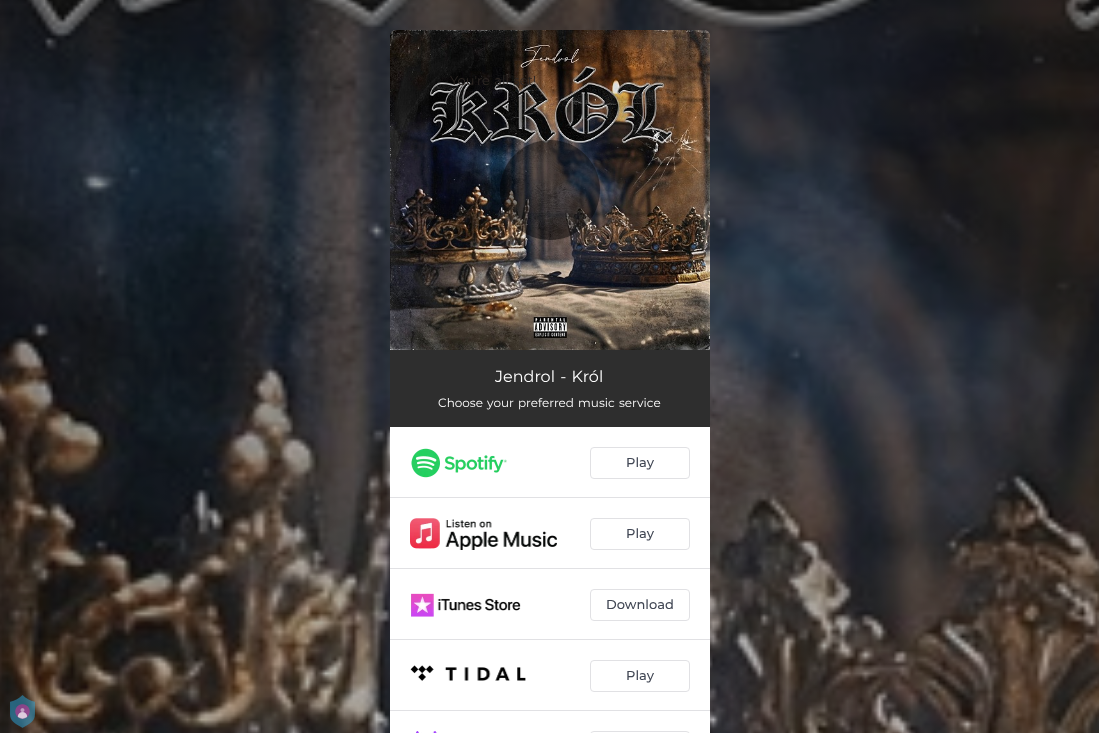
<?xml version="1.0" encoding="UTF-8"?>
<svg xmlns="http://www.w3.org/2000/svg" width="1099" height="733">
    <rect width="100%" height="100%" fill="#FFFFFF"/>
    <image x="0" y="0" width="1099" height="733" href="img_01.png"/>
    <image x="390" y="30" width="320" height="320" href="img_02.png"/>
    <circle cx="550" cy="190" r="50" fill="#000000" fill-opacity="0.45"/>
    <text x="450" y="85" word-spacing="1" font-family="Montserrat" font-size="13" fill="#2D2723">You're all set!</text>
    <rect x="390" y="350" width="320" height="77" fill="#2E2E2E"/>
    <text x="495" y="382" word-spacing="1" font-family="Montserrat" font-size="16" fill="#FFFFFF">Jendrol - Król</text>
    <text x="438" y="407" word-spacing="1" font-family="Montserrat" font-size="12" fill="#FFFFFF">Choose your preferred music service</text>
    <rect x="390" y="427" width="320" height="306" fill="#FFFFFF"/>
    <rect x="390" y="497" width="320" height="1" fill="#E1E1E4"/>
    <image x="411" y="448" width="96" height="30" href="img_03.png"/>
    <rect x="590.5" y="447.5" width="99" height="31" rx="3.5" fill="none" stroke="#E1E1E4"/>
    <text x="626" y="467" font-family="Montserrat" font-size="13" font-weight="500" fill="#414754">Play</text>
    <rect x="390" y="568" width="320" height="1" fill="#E1E1E4"/>
    <image x="410" y="518" width="147" height="32" href="img_04.png"/>
    <rect x="590.5" y="518.5" width="99" height="31" rx="3.5" fill="none" stroke="#E1E1E4"/>
    <text x="626" y="538" font-family="Montserrat" font-size="13" font-weight="500" fill="#414754">Play</text>
    <rect x="390" y="639" width="320" height="1" fill="#E1E1E4"/>
    <image x="411" y="593" width="110" height="24" href="img_05.png"/>
    <rect x="590.5" y="589.5" width="99" height="31" rx="3.5" fill="none" stroke="#E1E1E4"/>
    <text x="606" y="609" font-family="Montserrat" font-size="13" font-weight="500" fill="#414754">Download</text>
    <rect x="390" y="710" width="320" height="1" fill="#E1E1E4"/>
    <image x="410" y="665" width="116" height="16" href="img_06.png"/>
    <rect x="590.5" y="660.5" width="99" height="31" rx="3.5" fill="none" stroke="#E1E1E4"/>
    <text x="626" y="680" font-family="Montserrat" font-size="13" font-weight="500" fill="#414754">Play</text>
    <image x="416" y="731" width="21" height="2" href="img_07.png"/>
    <rect x="590.5" y="731.5" width="99" height="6" rx="3.5" fill="none" stroke="#E1E1E4"/>
    <image x="10" y="695" width="25" height="33" href="img_08.png"/>
</svg>
